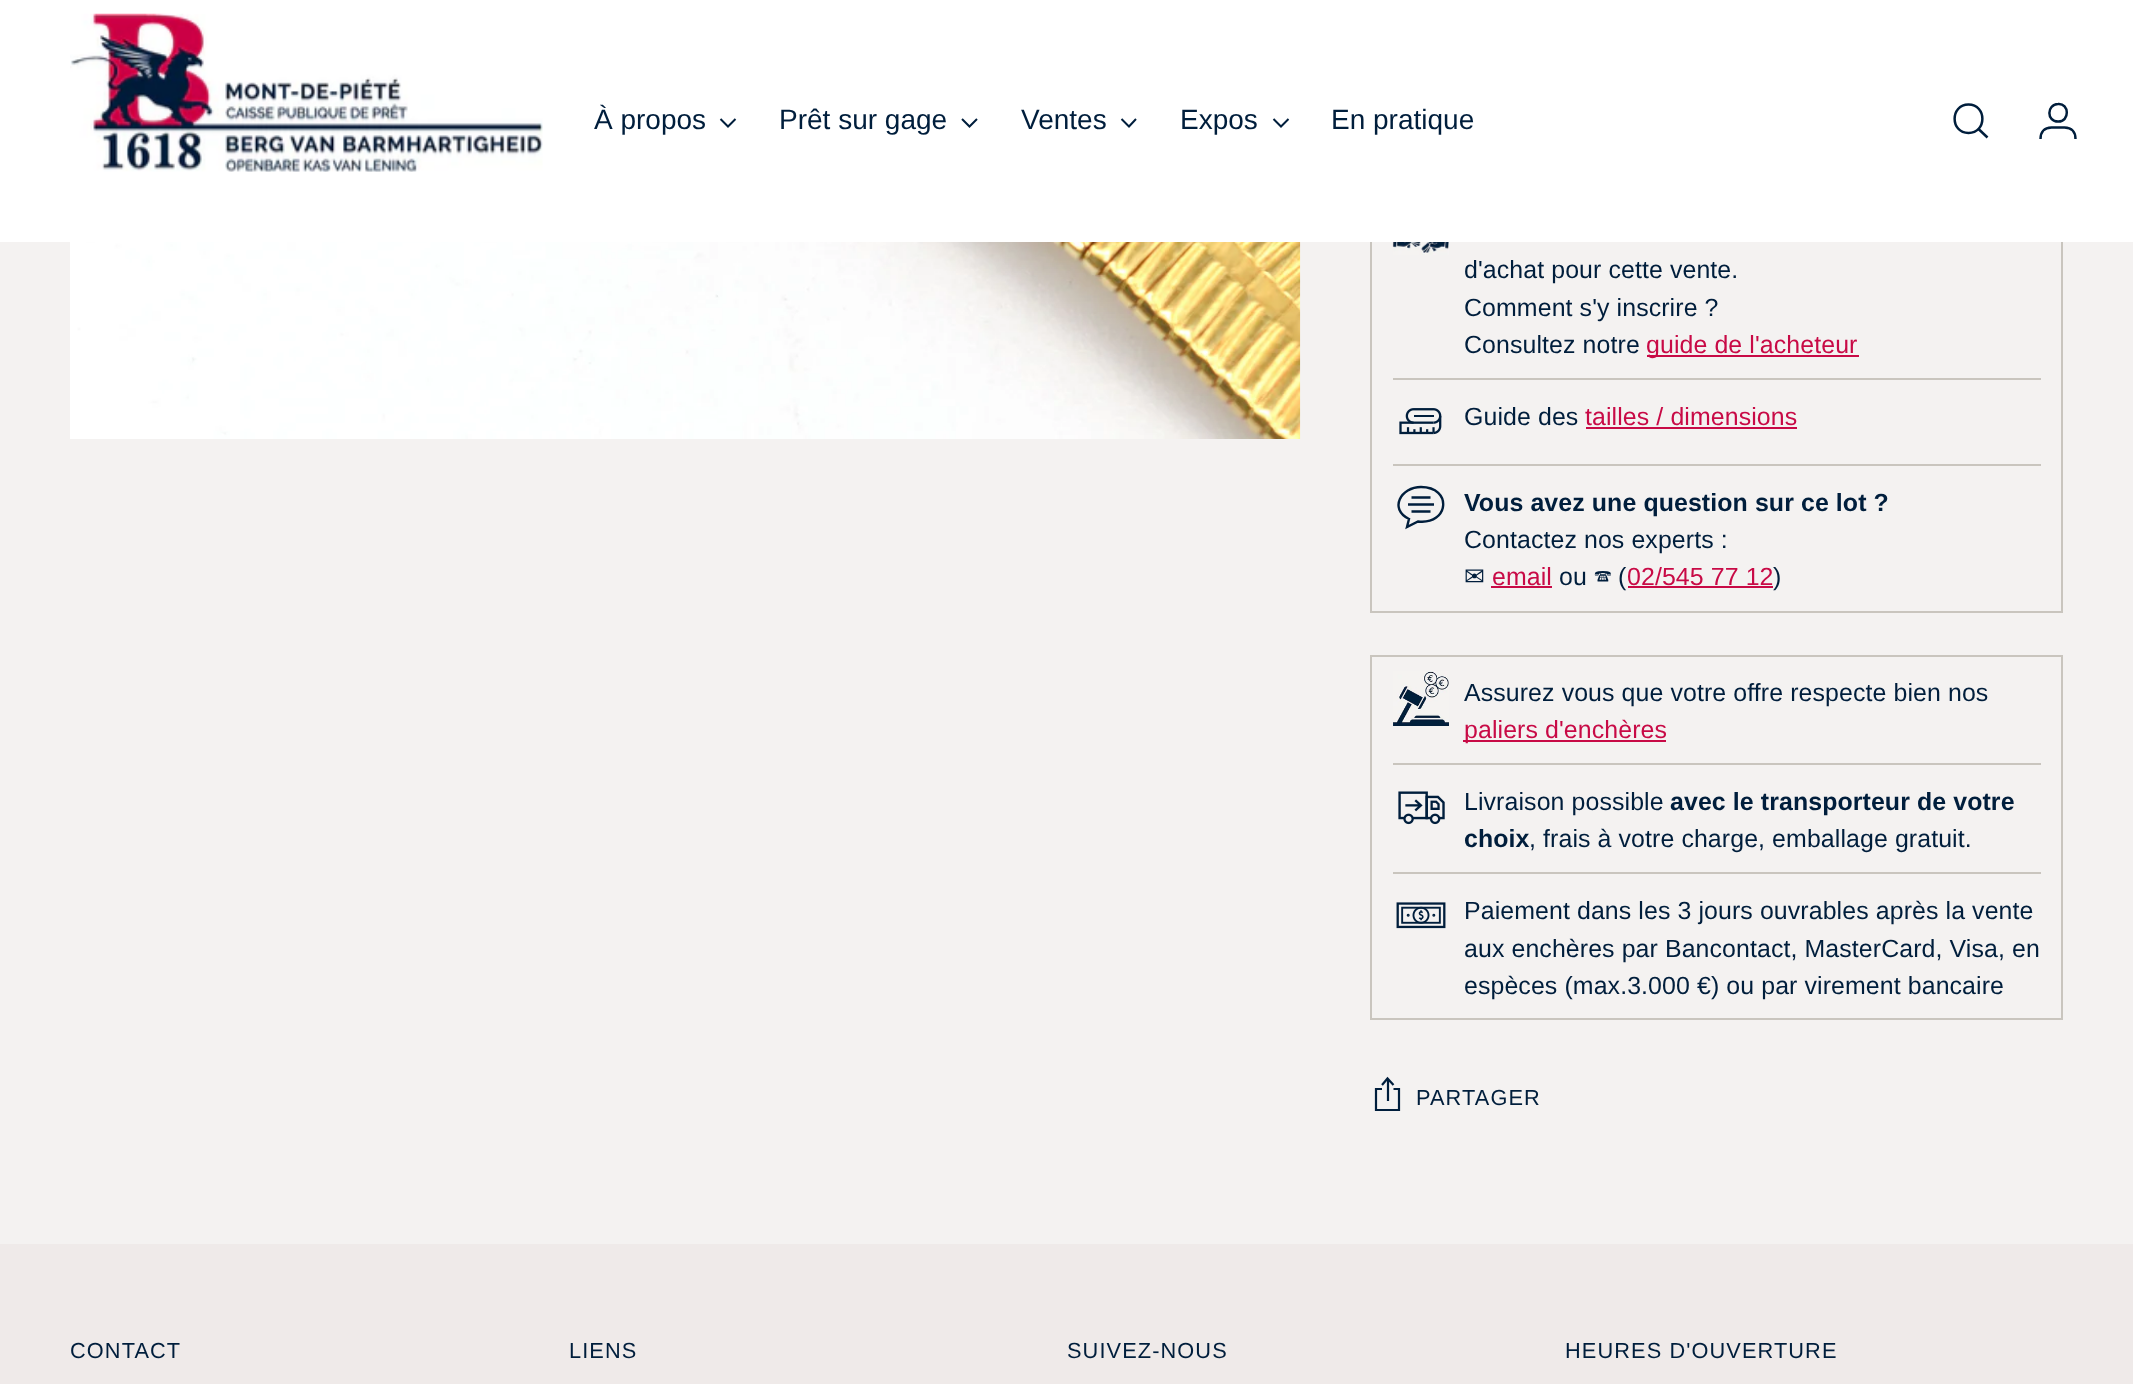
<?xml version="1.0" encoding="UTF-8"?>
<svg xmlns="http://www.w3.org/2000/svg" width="2133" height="1384">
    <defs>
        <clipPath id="clip1"><rect x="1370" y="1076" width="35" height="35"/></clipPath>
    </defs>
    <rect width="100%" height="100%" fill="#F4F2F1"/>
    <rect x="1371" y="85" width="691" height="527" fill="none" stroke="#C9C5BE" stroke-width="2"/>
    <rect x="0" y="0" width="2133" height="242" fill="#FFFFFF"/>
    <image x="70" y="13" width="473" height="159" href="img_01.png"/>
    <text x="594" y="129" font-family="Arimo" font-size="28" fill="#001E3C">À propos</text>
    <path d="M 720.5 119 L 728 126.5 L 735.5 119" fill="none" stroke="#001E3C" stroke-width="2"/>
    <text x="779" y="129" font-family="Arimo" font-size="28" fill="#001E3C">Prêt sur gage</text>
    <path d="M 962 119 L 969.5 126.5 L 977 119" fill="none" stroke="#001E3C" stroke-width="2"/>
    <text x="1021" y="129" font-family="Arimo" font-size="28" fill="#001E3C">Ventes</text>
    <path d="M 1121.5 119 L 1129 126.5 L 1136 119" fill="none" stroke="#001E3C" stroke-width="2"/>
    <text x="1180" y="129" font-family="Arimo" font-size="28" fill="#001E3C">Expos</text>
    <path d="M 1273.5 119 L 1281 126.5 L 1288.5 119" fill="none" stroke="#001E3C" stroke-width="2"/>
    <text x="1331" y="129" font-family="Arimo" font-size="28" fill="#001E3C">En pratique</text>
    <path d="M 1968.5 133 C 1987 133 1987 104.5 1968.5 104.5 C 1950 104.5 1950 133 1968.5 133 Z" fill="none" stroke="#001E3C" stroke-width="2.5" stroke-linecap="round"/>
    <path d="M 1978.5 129 L 1987.5 137.5" fill="none" stroke="#001E3C" stroke-width="2.5"/>
    <path d="M 2058 121.5 C 2070 122 2069.5 103 2058 104 C 2046.5 104.5 2046.5 121.5 2058 121.5 Z M 2040.5 139 C 2040.5 132.5 2044 127.5 2051.5 127.5 H 2064.5 C 2072 127.5 2075.5 132.5 2075.5 139" fill="none" stroke="#001E3C" stroke-width="2.5"/>
    <image x="70" y="242" width="1231" height="197" href="img_02.png"/>
    <image x="1392" y="242" width="57" height="13" href="img_03.png"/>
    <text font-family="Arimo" font-size="24.9" letter-spacing="0.1" fill="#001E3C">
        <tspan x="1464" y="278">d'achat pour cette vente.</tspan>
        <tspan x="1464" y="316">Comment s'y inscrire ?</tspan>
        <tspan x="1464" y="353">Consultez notre</tspan>
    </text>
    <rect x="1647" y="355" width="212" height="2" fill="#C80A46"/>
    <text x="1646" y="353" font-family="Arimo" font-size="24.9" letter-spacing="0.1" fill="#C80A46">guide de l'acheteur</text>
    <rect x="1393" y="378" width="648" height="2" fill="#C9C5BE"/>
    <image x="1399" y="408" width="43" height="27" href="img_04.png"/>
    <text x="1464" y="425" font-family="Arimo" font-size="24.9" letter-spacing="0.1" fill="#001E3C">Guide des</text>
    <text x="1585" y="425" font-family="Arimo" font-size="24.9" letter-spacing="0.1" fill="#C80A46">tailles / dimensions</text>
    <rect x="1586" y="427" width="211" height="2" fill="#C80A46"/>
    <rect x="1393" y="464" width="648" height="2" fill="#C9C5BE"/>
    <path d="M 1408 504.5 H 1434 M 1411.5 497.5 H 1430.5 M 1411.5 511.5 H 1430.5" fill="none" stroke="#001E3C" stroke-width="2.4"/>
    <path d="M 1421 487 C 1401 487 1388.5 509 1409 519 L 1407 527 L 1418 521.5 C 1449.5 525 1452.5 487 1421 487 Z" fill="none" stroke="#001E3C" stroke-width="2.4" stroke-linecap="round"/>
    <text x="1464" y="511" font-family="Arimo" font-size="24.9" font-weight="700" letter-spacing="0.1" fill="#001E3C">Vous avez une question sur ce lot ?</text>
    <text x="1464" y="548" font-family="Arimo" font-size="24.9" letter-spacing="0.1" fill="#001E3C">Contactez nos experts :</text>
    <text x="1464" y="585" font-family="DejaVu Sans" font-size="24.9" letter-spacing="0.1" fill="#001E3C">✉</text>
    <text x="1492" y="585" font-family="Arimo" font-size="24.9" letter-spacing="0.1" fill="#C80A46">email</text>
    <rect x="1491" y="586" width="61" height="2" fill="#C80A46"/>
    <text x="1559" y="585" font-family="Arimo" font-size="24.9" letter-spacing="0.1" fill="#001E3C">ou</text>
    <text x="1594" y="585" font-family="FreeSerif" font-size="24.9" letter-spacing="0.1" fill="#001E3C">🕿</text>
    <text x="1618" y="585" font-family="Arimo" font-size="24.9" letter-spacing="0.1" fill="#001E3C">(</text>
    <text x="1627" y="585" font-family="Arimo" font-size="24.9" letter-spacing="0.1" fill="#C80A46">02/545 77 12</text>
    <rect x="1628" y="586" width="145" height="2" fill="#C80A46"/>
    <text x="1773" y="585" font-family="Arimo" font-size="24.9" letter-spacing="0.1" fill="#001E3C">)</text>
    <rect x="1371" y="656" width="691" height="363" fill="none" stroke="#C9C5BE" stroke-width="2"/>
    <image x="1393" y="671" width="56" height="55" href="img_05.png"/>
    <text x="1464" y="701" font-family="Arimo" font-size="24.9" letter-spacing="0.1" fill="#001E3C">Assurez vous que votre offre respecte bien nos</text>
    <rect x="1463" y="740" width="203" height="2" fill="#C80A46"/>
    <text x="1464" y="738" font-family="Arimo" font-size="24.9" letter-spacing="0.1" fill="#C80A46">paliers d'enchères</text>
    <rect x="1393" y="763" width="648" height="2" fill="#C9C5BE"/>
    <image x="1398" y="791" width="47" height="34" href="img_06.png"/>
    <text x="1464" y="810" font-family="Arimo" font-size="24.9" letter-spacing="0.1" fill="#001E3C">Livraison possible</text>
    <text x="1670" y="810" font-family="Arimo" font-size="24.9" font-weight="700" letter-spacing="0.1" fill="#001E3C">avec le transporteur de votre</text>
    <text x="1464" y="847" font-family="Arimo" font-size="24.9" font-weight="700" letter-spacing="0.1" fill="#001E3C">choix</text>
    <text x="1529" y="847" font-family="Arimo" font-size="24.9" letter-spacing="0.1" fill="#001E3C">, frais à votre charge, emballage gratuit.</text>
    <rect x="1393" y="872" width="648" height="2" fill="#C9C5BE"/>
    <image x="1396" y="902" width="50" height="27" href="img_07.png"/>
    <text font-family="Arimo" font-size="24.9" letter-spacing="0.1" fill="#001E3C">
        <tspan x="1464" y="919">Paiement dans les 3 jours ouvrables après la vente</tspan>
        <tspan x="1464" y="957">aux enchères par Bancontact, MasterCard, Visa, en</tspan>
        <tspan x="1464" y="994">espèces (max.3.000 €) ou par virement bancaire</tspan>
    </text>
    <g clip-path="url(#clip1)">
        <path d="M 1382 1089 H 1376 V 1110 H 1399 V 1089 H 1393.5 M 1388 1101 V 1079.5 M 1393.5 1085 L 1387.5 1078.5 L 1382 1085" fill="none" stroke="#001E3C" stroke-width="2.2"/>
    </g>
    <text x="1416" y="1105" font-family="Arimo" font-size="21.75" letter-spacing="1.1" fill="#001E3C">PARTAGER</text>
    <rect x="0" y="1244" width="2133" height="140" fill="#EFEAE9"/>
    <text x="70" y="1358" font-family="Arimo" font-size="21.75" letter-spacing="1.1" fill="#001E3C">CONTACT</text>
    <text x="569" y="1358" font-family="Arimo" font-size="21.75" letter-spacing="1.1" fill="#001E3C">LIENS</text>
    <text x="1067" y="1358" font-family="Arimo" font-size="21.75" letter-spacing="1.1" fill="#001E3C">SUIVEZ-NOUS</text>
    <text x="1565" y="1358" font-family="Arimo" font-size="21.75" letter-spacing="1.1" fill="#001E3C">HEURES D'OUVERTURE</text>
</svg>
